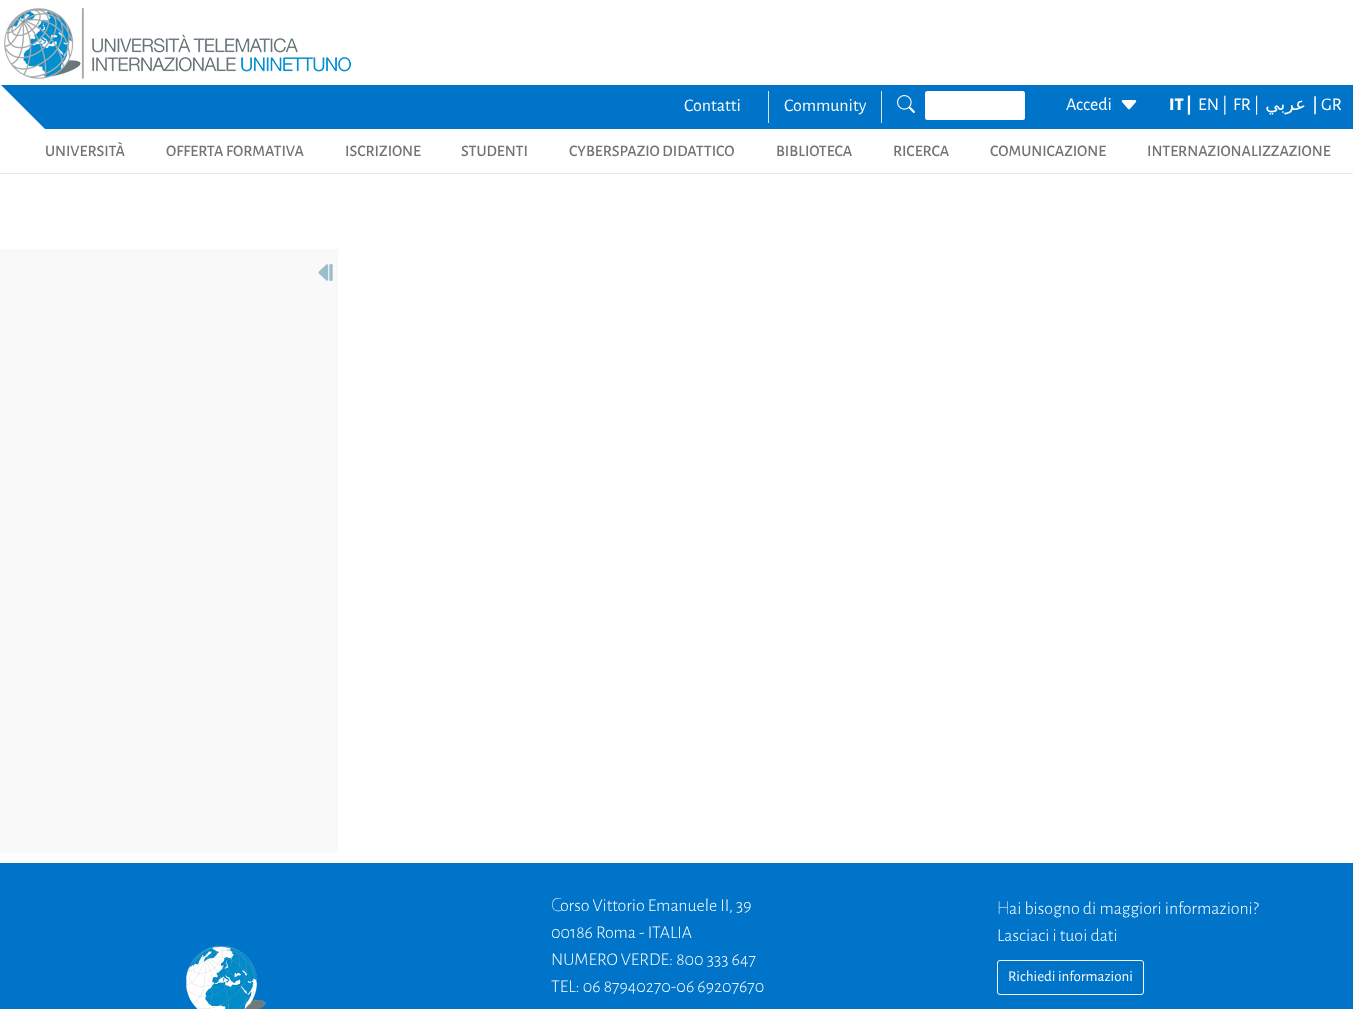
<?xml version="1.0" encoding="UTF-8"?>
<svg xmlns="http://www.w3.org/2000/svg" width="1353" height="1009">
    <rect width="100%" height="100%" fill="#FFFFFF"/>
    <rect x="0" y="173" width="1353" height="1" fill="#E8E8E8"/>
    <image x="4" y="8" width="347" height="71" href="img_01.png"/>
    <path d="M 45 85 V 129 L 1 85 Z" fill="#0074C9"/>
    <rect x="45" y="85" width="1308" height="44" fill="#0074C9"/>
    <rect x="768" y="91" width="1" height="32" fill="#DEE2E6"/>
    <text x="684" y="111" font-family="Alegreya Sans" font-size="18" fill="#F8F9FA">Contatti</text>
    <rect x="881" y="91" width="1" height="32" fill="#DEE2E6"/>
    <text x="784" y="111" font-family="Alegreya Sans" font-size="18" fill="#F8F9FA">Community</text>
    <image x="897" y="95" width="18" height="18" href="img_02.png"/>
    <rect x="925" y="91" width="100" height="29" rx="2.5" fill="#FFFFFF"/>
    <text x="1066" y="110" font-family="Alegreya Sans" font-size="18" fill="#FFFFFF">Accedi</text>
    <image x="1121" y="100" width="16" height="10" href="img_03.png"/>
    <text x="1169" y="110" font-family="Alegreya Sans" font-size="18" font-weight="800" fill="#FFFFFF">IT |</text>
    <text x="1198" y="110" font-family="Alegreya Sans" font-size="18" fill="#FFFFFF">EN |</text>
    <text x="1233" y="110" font-family="Alegreya Sans" font-size="18" fill="#FFFFFF">FR |</text>
    <text x="1306" y="110" font-family="DejaVu Sans" font-size="18" direction="rtl" fill="#FFFFFF">عربي</text>
    <text x="1312" y="110" font-family="DejaVu Sans" font-size="18" fill="#FFFFFF">|</text>
    <text x="1321" y="110" font-family="Alegreya Sans" font-size="18" fill="#FFFFFF">GR</text>
    <text x="45" y="156" font-family="Alegreya Sans" font-size="16" font-weight="500" fill="#737373">UNIVERSITÀ</text>
    <text x="166" y="156" font-family="Alegreya Sans" font-size="16" font-weight="500" fill="#737373">OFFERTA FORMATIVA</text>
    <text x="345" y="156" font-family="Alegreya Sans" font-size="16" font-weight="500" fill="#737373">ISCRIZIONE</text>
    <text x="461" y="156" font-family="Alegreya Sans" font-size="16" font-weight="500" fill="#737373">STUDENTI</text>
    <text x="569" y="156" font-family="Alegreya Sans" font-size="16" font-weight="500" fill="#737373">CYBERSPAZIO DIDATTICO</text>
    <text x="776" y="156" font-family="Alegreya Sans" font-size="16" font-weight="500" fill="#737373">BIBLIOTECA</text>
    <text x="893" y="156" font-family="Alegreya Sans" font-size="16" font-weight="500" fill="#737373">RICERCA</text>
    <text x="990" y="156" font-family="Alegreya Sans" font-size="16" font-weight="500" fill="#737373">COMUNICAZIONE</text>
    <text x="1147" y="156" font-family="Alegreya Sans" font-size="16" font-weight="500" fill="#737373">INTERNAZIONALIZZAZIONE</text>
    <rect x="0" y="249" width="338" height="604" fill="#F9F9F9"/>
    <image x="318" y="264" width="15" height="17" href="img_04.png"/>
    <rect x="0" y="863" width="1353" height="146" fill="#0074C9"/>
    <image x="186" y="946" width="80" height="63" href="img_05.png"/>
    <text x="551" y="911" font-family="Noto Sans" font-size="18" font-weight="100" fill="#FFFFFF">C</text>
    <text x="560" y="911" font-family="Alegreya Sans" font-size="18" font-weight="300" fill="#FFFFFF">orso Vittorio Emanuele II, 39</text>
    <text font-family="Alegreya Sans" font-size="18" font-weight="300" fill="#FFFFFF">
        <tspan x="551" y="938">00186 Roma - ITALIA</tspan>
        <tspan x="551" y="965">NUMERO VERDE: 800 333 647</tspan>
        <tspan x="551" y="992">TEL: 06 87940270-06 69207670</tspan>
    </text>
    <text x="997" y="914" font-family="Noto Sans" font-size="18" font-weight="100" fill="#FFFFFF">H</text>
    <text x="1009" y="914" font-family="Alegreya Sans" font-size="18" font-weight="300" fill="#FFFFFF">ai bisogno di maggiori informazioni?</text>
    <text x="997" y="941" font-family="Alegreya Sans" font-size="18" font-weight="300" fill="#FFFFFF">Lasciaci i tuoi dati</text>
    <rect x="997.5" y="960.5" width="146" height="34" rx="2.5" fill="none" stroke="#F8F9FA"/>
    <text x="1008" y="981" font-family="Alegreya Sans" font-size="15" fill="#F8F9FA">Richiedi informazioni</text>
</svg>
